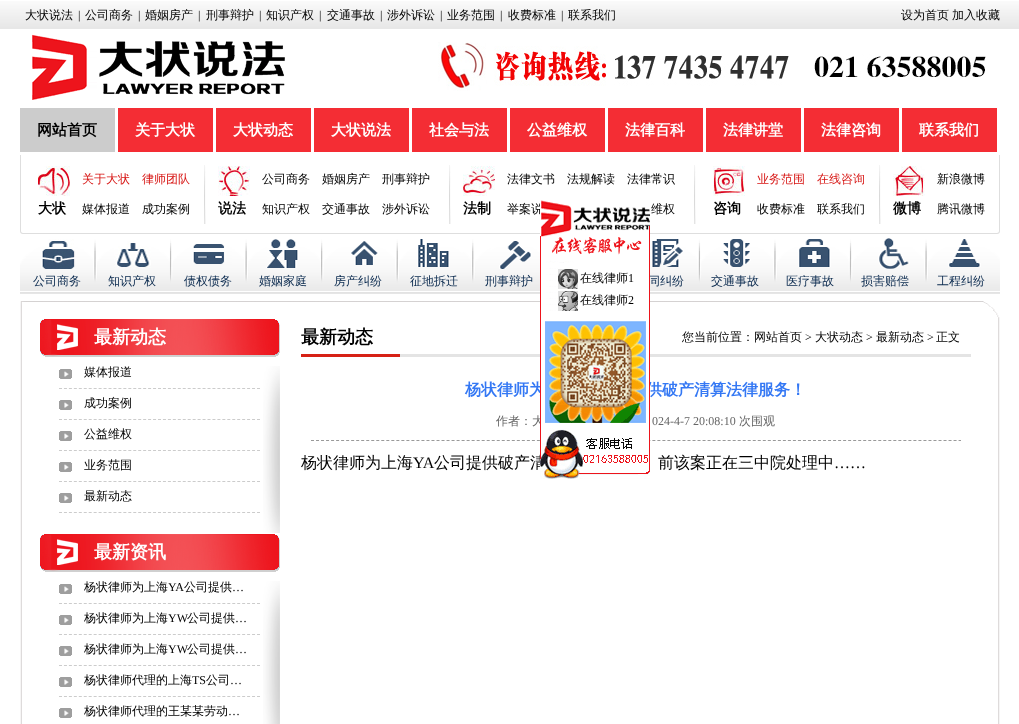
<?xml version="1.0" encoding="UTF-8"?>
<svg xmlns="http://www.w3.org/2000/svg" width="1019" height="724">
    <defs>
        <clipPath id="clip1"><rect x="817" y="194" width="60" height="30"/></clipPath>
    </defs>
    <rect width="100%" height="100%" fill="#FFFFFF"/>
    <image x="0" y="1" width="1019" height="28" href="img_01.png"/>
    <text x="25" y="19" font-family="WenQuanYi Zen Hei" font-size="12" font-weight="500" fill="#000000">大状说法</text>
    <text x="78" y="19" font-family="Liberation Serif" font-size="12" fill="#000000">|</text>
    <text x="85" y="19" font-family="WenQuanYi Zen Hei" font-size="12" font-weight="500" fill="#000000">公司商务</text>
    <text x="138" y="19" font-family="Liberation Serif" font-size="12" fill="#000000">|</text>
    <text x="145" y="19" font-family="WenQuanYi Zen Hei" font-size="12" font-weight="500" fill="#000000">婚姻房产</text>
    <text x="198" y="19" font-family="Liberation Serif" font-size="12" fill="#000000">|</text>
    <text x="206" y="19" font-family="WenQuanYi Zen Hei" font-size="12" font-weight="500" fill="#000000">刑事辩护</text>
    <text x="259" y="19" font-family="Liberation Serif" font-size="12" fill="#000000">|</text>
    <text x="266" y="19" font-family="WenQuanYi Zen Hei" font-size="12" font-weight="500" fill="#000000">知识产权</text>
    <text x="319" y="19" font-family="Liberation Serif" font-size="12" fill="#000000">|</text>
    <text x="327" y="19" font-family="WenQuanYi Zen Hei" font-size="12" font-weight="500" fill="#000000">交通事故</text>
    <text x="380" y="19" font-family="Liberation Serif" font-size="12" fill="#000000">|</text>
    <text x="387" y="19" font-family="WenQuanYi Zen Hei" font-size="12" font-weight="500" fill="#000000">涉外诉讼</text>
    <text x="440" y="19" font-family="Liberation Serif" font-size="12" fill="#000000">|</text>
    <text x="447" y="19" font-family="WenQuanYi Zen Hei" font-size="12" font-weight="500" fill="#000000">业务范围</text>
    <text x="500" y="19" font-family="Liberation Serif" font-size="12" fill="#000000">|</text>
    <text x="508" y="19" font-family="WenQuanYi Zen Hei" font-size="12" font-weight="500" fill="#000000">收费标准</text>
    <text x="561" y="19" font-family="Liberation Serif" font-size="12" fill="#000000">|</text>
    <text x="568" y="19" font-family="WenQuanYi Zen Hei" font-size="12" font-weight="500" fill="#000000">联系我们</text>
    <text x="901" y="19" font-family="WenQuanYi Zen Hei" font-size="12" font-weight="500" fill="#000000">设为首页</text>
    <text x="952" y="19" font-family="WenQuanYi Zen Hei" font-size="12" font-weight="500" fill="#000000">加入收藏</text>
    <image x="32" y="34" width="253" height="66" href="img_02.png"/>
    <image x="438" y="42" width="548" height="49" href="img_03.png"/>
    <rect x="118" y="108" width="879" height="44" fill="#F42D34"/>
    <rect x="20" y="108" width="95" height="44" fill="#CCCCCC"/>
    <text x="37" y="135" font-family="WenQuanYi Zen Hei" font-size="15" font-weight="700" fill="#000000">网站首页</text>
    <rect x="213" y="108" width="3" height="44" fill="#FFFFFF"/>
    <text x="135" y="135" font-family="WenQuanYi Zen Hei" font-size="15" font-weight="700" fill="#FFFFFF">关于大状</text>
    <rect x="311" y="108" width="3" height="44" fill="#FFFFFF"/>
    <text x="233" y="135" font-family="WenQuanYi Zen Hei" font-size="15" font-weight="700" fill="#FFFFFF">大状动态</text>
    <rect x="409" y="108" width="3" height="44" fill="#FFFFFF"/>
    <text x="331" y="135" font-family="WenQuanYi Zen Hei" font-size="15" font-weight="700" fill="#FFFFFF">大状说法</text>
    <rect x="507" y="108" width="3" height="44" fill="#FFFFFF"/>
    <text x="429" y="135" font-family="WenQuanYi Zen Hei" font-size="15" font-weight="700" fill="#FFFFFF">社会与法</text>
    <rect x="605" y="108" width="3" height="44" fill="#FFFFFF"/>
    <text x="527" y="135" font-family="WenQuanYi Zen Hei" font-size="15" font-weight="700" fill="#FFFFFF">公益维权</text>
    <rect x="703" y="108" width="3" height="44" fill="#FFFFFF"/>
    <text x="625" y="135" font-family="WenQuanYi Zen Hei" font-size="15" font-weight="700" fill="#FFFFFF">法律百科</text>
    <rect x="801" y="108" width="3" height="44" fill="#FFFFFF"/>
    <text x="723" y="135" font-family="WenQuanYi Zen Hei" font-size="15" font-weight="700" fill="#FFFFFF">法律讲堂</text>
    <rect x="899" y="108" width="3" height="44" fill="#FFFFFF"/>
    <text x="821" y="135" font-family="WenQuanYi Zen Hei" font-size="15" font-weight="700" fill="#FFFFFF">法律咨询</text>
    <text x="919" y="135" font-family="WenQuanYi Zen Hei" font-size="15" font-weight="700" fill="#FFFFFF">联系我们</text>
    <path d="M 20 155 H 1000 V 231 C 1000 233 999 234 997 234 H 23 C 21 234 20 233 20 231 Z M 21 155 H 999 V 231 C 999 232 998 233 997 233 H 23 C 22 233 21 232 21 231 Z" fill="#DEDEDE" fill-rule="evenodd"/>
    <image x="204" y="165" width="2" height="59" href="img_04.png"/>
    <image x="38" y="166" width="32" height="30" href="img_05.png"/>
    <text x="38" y="213" font-family="WenQuanYi Zen Hei" font-size="14" font-weight="700" fill="#000000">大状</text>
    <text x="82" y="183" font-family="WenQuanYi Zen Hei" font-size="12" font-weight="500" fill="#D71513">关于大状</text>
    <text x="142" y="183" font-family="WenQuanYi Zen Hei" font-size="12" font-weight="500" fill="#D71513">律师团队</text>
    <text x="82" y="213" font-family="WenQuanYi Zen Hei" font-size="12" font-weight="500" fill="#000000">媒体报道</text>
    <text x="142" y="213" font-family="WenQuanYi Zen Hei" font-size="12" font-weight="500" fill="#000000">成功案例</text>
    <image x="449" y="165" width="2" height="59" href="img_04.png"/>
    <image x="218" y="166" width="32" height="30" href="img_06.png"/>
    <text x="218" y="213" font-family="WenQuanYi Zen Hei" font-size="14" font-weight="700" fill="#000000">说法</text>
    <text x="262" y="183" font-family="WenQuanYi Zen Hei" font-size="12" font-weight="500" fill="#000000">公司商务</text>
    <text x="322" y="183" font-family="WenQuanYi Zen Hei" font-size="12" font-weight="500" fill="#000000">婚姻房产</text>
    <text x="382" y="183" font-family="WenQuanYi Zen Hei" font-size="12" font-weight="500" fill="#000000">刑事辩护</text>
    <text x="262" y="213" font-family="WenQuanYi Zen Hei" font-size="12" font-weight="500" fill="#000000">知识产权</text>
    <text x="322" y="213" font-family="WenQuanYi Zen Hei" font-size="12" font-weight="500" fill="#000000">交通事故</text>
    <text x="382" y="213" font-family="WenQuanYi Zen Hei" font-size="12" font-weight="500" fill="#000000">涉外诉讼</text>
    <image x="694" y="165" width="2" height="59" href="img_04.png"/>
    <image x="463" y="166" width="32" height="30" href="img_07.png"/>
    <text x="463" y="213" font-family="WenQuanYi Zen Hei" font-size="14" font-weight="700" fill="#000000">法制</text>
    <text x="507" y="183" font-family="WenQuanYi Zen Hei" font-size="12" font-weight="500" fill="#000000">法律文书</text>
    <text x="567" y="183" font-family="WenQuanYi Zen Hei" font-size="12" font-weight="500" fill="#000000">法规解读</text>
    <text x="627" y="183" font-family="WenQuanYi Zen Hei" font-size="12" font-weight="500" fill="#000000">法律常识</text>
    <text x="507" y="213" font-family="WenQuanYi Zen Hei" font-size="12" font-weight="500" fill="#000000">举案说</text>
    <text x="651" y="213" font-family="WenQuanYi Zen Hei" font-size="12" font-weight="500" fill="#000000">维权</text>
    <image x="879" y="165" width="2" height="59" href="img_04.png"/>
    <image x="713" y="166" width="32" height="30" href="img_08.png"/>
    <text x="713" y="213" font-family="WenQuanYi Zen Hei" font-size="14" font-weight="700" fill="#000000">咨询</text>
    <text x="757" y="183" font-family="WenQuanYi Zen Hei" font-size="12" font-weight="500" fill="#D71513">业务范围</text>
    <text x="817" y="183" font-family="WenQuanYi Zen Hei" font-size="12" font-weight="500" fill="#D71513">在线咨询</text>
    <text x="757" y="213" font-family="WenQuanYi Zen Hei" font-size="12" font-weight="500" fill="#000000">收费标准</text>
    <g clip-path="url(#clip1)">
        <text x="817" y="213" font-family="WenQuanYi Zen Hei" font-size="12" font-weight="500" fill="#000000">联系我们</text>
    </g>
    <image x="893" y="166" width="32" height="30" href="img_09.png"/>
    <text x="893" y="213" font-family="WenQuanYi Zen Hei" font-size="14" font-weight="700" fill="#000000">微博</text>
    <text x="937" y="183" font-family="WenQuanYi Zen Hei" font-size="12" font-weight="500" fill="#000000">新浪微博</text>
    <text x="937" y="213" font-family="WenQuanYi Zen Hei" font-size="12" font-weight="500" fill="#000000">腾讯微博</text>
    <image x="20" y="238" width="980" height="56" href="img_15.png"/>
    <image x="540" y="200" width="110" height="63" href="img_10.png"/>
    <text x="648" y="285" font-family="WenQuanYi Zen Hei" font-size="12" font-weight="500" fill="#08284D">同纠纷</text>
    <image x="20" y="301" width="980" height="17" href="img_16.png"/>
    <image x="540" y="263" width="110" height="49" href="img_11.png"/>
    <image x="558" y="269" width="20" height="20" href="img_12.png"/>
    <text x="580" y="282" font-family="WenQuanYi Zen Hei" font-size="12" font-weight="500" fill="#000000">在线律师</text>
    <text x="628" y="282" font-family="Liberation Serif" font-size="12" fill="#000000">1</text>
    <image x="558" y="291" width="20" height="20" href="img_13.png"/>
    <text x="580" y="304" font-family="WenQuanYi Zen Hei" font-size="12" font-weight="500" fill="#000000">在线律师</text>
    <text x="628" y="304" font-family="Liberation Serif" font-size="12" fill="#000000">2</text>
    <image x="20" y="318" width="980" height="406" href="img_17.png"/>
    <image x="301" y="354" width="670" height="3" href="img_22.png"/>
    <path d="M 311 440.5 H 961" fill="none" stroke="#999999" stroke-dasharray="3 2.02"/>
    <text x="465" y="395" font-family="WenQuanYi Zen Hei" font-size="16" font-weight="700" fill="#3478F4">杨状律师为</text>
    <text x="646" y="395" font-family="WenQuanYi Zen Hei" font-size="16" font-weight="700" fill="#3478F4">供破产清算法律服务！</text>
    <text x="496" y="425" font-family="WenQuanYi Zen Hei" font-size="12" font-weight="500" fill="#666666">作者：大</text>
    <text x="434" y="468" font-family="WenQuanYi Zen Hei" font-size="16" font-weight="500" fill="#000000">公司提供破产清</text>
    <image x="540" y="312" width="110" height="167" href="img_14.png"/>
    <text x="33" y="285" font-family="WenQuanYi Zen Hei" font-size="12" font-weight="500" fill="#08284D">公司商务</text>
    <text x="108" y="285" font-family="WenQuanYi Zen Hei" font-size="12" font-weight="500" fill="#08284D">知识产权</text>
    <text x="184" y="285" font-family="WenQuanYi Zen Hei" font-size="12" font-weight="500" fill="#08284D">债权债务</text>
    <text x="259" y="285" font-family="WenQuanYi Zen Hei" font-size="12" font-weight="500" fill="#08284D">婚姻家庭</text>
    <text x="334" y="285" font-family="WenQuanYi Zen Hei" font-size="12" font-weight="500" fill="#08284D">房产纠纷</text>
    <text x="410" y="285" font-family="WenQuanYi Zen Hei" font-size="12" font-weight="500" fill="#08284D">征地拆迁</text>
    <text x="485" y="285" font-family="WenQuanYi Zen Hei" font-size="12" font-weight="500" fill="#08284D">刑事辩护</text>
    <text x="711" y="285" font-family="WenQuanYi Zen Hei" font-size="12" font-weight="500" fill="#08284D">交通事故</text>
    <text x="786" y="285" font-family="WenQuanYi Zen Hei" font-size="12" font-weight="500" fill="#08284D">医疗事故</text>
    <text x="861" y="285" font-family="WenQuanYi Zen Hei" font-size="12" font-weight="500" fill="#08284D">损害赔偿</text>
    <text x="937" y="285" font-family="WenQuanYi Zen Hei" font-size="12" font-weight="500" fill="#08284D">工程纠纷</text>
    <image x="40" y="319" width="240" height="38" href="img_18.png"/>
    <text x="94" y="343" font-family="WenQuanYi Zen Hei" font-size="18" font-weight="700" fill="#FFFFFF">最新动态</text>
    <image x="263" y="366" width="17" height="167" href="img_19.png"/>
    <image x="59" y="369" width="13" height="10" href="img_20.png"/>
    <path d="M 59 388.5 H 260" fill="none" stroke="#CCCCCC" stroke-dasharray="3 1.95"/>
    <text x="84" y="376" font-family="WenQuanYi Zen Hei" font-size="12" font-weight="500" fill="#000000">媒体报道</text>
    <image x="59" y="400" width="13" height="10" href="img_20.png"/>
    <path d="M 59 419.5 H 260" fill="none" stroke="#CCCCCC" stroke-dasharray="3 1.95"/>
    <text x="84" y="407" font-family="WenQuanYi Zen Hei" font-size="12" font-weight="500" fill="#000000">成功案例</text>
    <image x="59" y="431" width="13" height="10" href="img_20.png"/>
    <path d="M 59 450.5 H 260" fill="none" stroke="#CCCCCC" stroke-dasharray="3 1.95"/>
    <text x="84" y="438" font-family="WenQuanYi Zen Hei" font-size="12" font-weight="500" fill="#000000">公益维权</text>
    <image x="59" y="462" width="13" height="10" href="img_20.png"/>
    <path d="M 59 481.5 H 260" fill="none" stroke="#CCCCCC" stroke-dasharray="3 1.95"/>
    <text x="84" y="469" font-family="WenQuanYi Zen Hei" font-size="12" font-weight="500" fill="#000000">业务范围</text>
    <image x="59" y="493" width="13" height="10" href="img_20.png"/>
    <path d="M 59 512.5 H 260" fill="none" stroke="#CCCCCC" stroke-dasharray="3 1.95"/>
    <text x="84" y="500" font-family="WenQuanYi Zen Hei" font-size="12" font-weight="500" fill="#000000">最新动态</text>
    <image x="40" y="534" width="240" height="38" href="img_18.png"/>
    <text x="94" y="558" font-family="WenQuanYi Zen Hei" font-size="18" font-weight="700" fill="#FFFFFF">最新资讯</text>
    <image x="263" y="581" width="17" height="143" href="img_21.png"/>
    <image x="59" y="584" width="13" height="10" href="img_20.png"/>
    <path d="M 59 603.5 H 260" fill="none" stroke="#CCCCCC" stroke-dasharray="3 1.95"/>
    <text x="84" y="591" font-family="WenQuanYi Zen Hei" font-size="12" font-weight="500" fill="#000000">杨状律师为上海</text>
    <text x="168" y="591" font-family="Liberation Serif" font-size="12" fill="#000000">YA</text>
    <text x="184" y="591" font-family="WenQuanYi Zen Hei" font-size="12" font-weight="500" fill="#000000">公司提供</text>
    <text x="232" y="591" font-family="Liberation Serif" font-size="12" fill="#000000">…</text>
    <image x="59" y="615" width="13" height="10" href="img_20.png"/>
    <path d="M 59 634.5 H 260" fill="none" stroke="#CCCCCC" stroke-dasharray="3 1.95"/>
    <text x="84" y="622" font-family="WenQuanYi Zen Hei" font-size="12" font-weight="500" fill="#000000">杨状律师为上海</text>
    <text x="168" y="622" font-family="Liberation Serif" font-size="12" fill="#000000">YW</text>
    <text x="187" y="622" font-family="WenQuanYi Zen Hei" font-size="12" font-weight="500" fill="#000000">公司提供</text>
    <text x="235" y="622" font-family="Liberation Serif" font-size="12" fill="#000000">…</text>
    <image x="59" y="646" width="13" height="10" href="img_20.png"/>
    <path d="M 59 665.5 H 260" fill="none" stroke="#CCCCCC" stroke-dasharray="3 1.95"/>
    <text x="84" y="653" font-family="WenQuanYi Zen Hei" font-size="12" font-weight="500" fill="#000000">杨状律师为上海</text>
    <text x="168" y="653" font-family="Liberation Serif" font-size="12" fill="#000000">YW</text>
    <text x="187" y="653" font-family="WenQuanYi Zen Hei" font-size="12" font-weight="500" fill="#000000">公司提供</text>
    <text x="235" y="653" font-family="Liberation Serif" font-size="12" fill="#000000">…</text>
    <image x="59" y="677" width="13" height="10" href="img_20.png"/>
    <path d="M 59 696.5 H 260" fill="none" stroke="#CCCCCC" stroke-dasharray="3 1.95"/>
    <text x="84" y="684" font-family="WenQuanYi Zen Hei" font-size="12" font-weight="500" fill="#000000">杨状律师代理的上海</text>
    <text x="192" y="684" font-family="Liberation Serif" font-size="12" fill="#000000">TS</text>
    <text x="206" y="684" font-family="WenQuanYi Zen Hei" font-size="12" font-weight="500" fill="#000000">公司</text>
    <text x="230" y="684" font-family="Liberation Serif" font-size="12" fill="#000000">…</text>
    <image x="59" y="708" width="13" height="10" href="img_20.png"/>
    <text x="84" y="715" font-family="WenQuanYi Zen Hei" font-size="12" font-weight="500" fill="#000000">杨状律师代理的王某某劳动</text>
    <text x="228" y="715" font-family="Liberation Serif" font-size="12" fill="#000000">…</text>
    <text x="301" y="343" font-family="WenQuanYi Zen Hei" font-size="18" font-weight="700" fill="#000000">最新动态</text>
    <text x="682" y="341" font-family="WenQuanYi Zen Hei" font-size="12" font-weight="500" fill="#000000">您当前位置：网站首页</text>
    <text x="805" y="341" font-family="Liberation Serif" font-size="12" fill="#000000">&gt;</text>
    <text x="815" y="341" font-family="WenQuanYi Zen Hei" font-size="12" font-weight="500" fill="#000000">大状动态</text>
    <text x="866" y="341" font-family="Liberation Serif" font-size="12" fill="#000000">&gt;</text>
    <text x="876" y="341" font-family="WenQuanYi Zen Hei" font-size="12" font-weight="500" fill="#000000">最新动态</text>
    <text x="927" y="341" font-family="Liberation Serif" font-size="12" fill="#000000">&gt;</text>
    <text x="936" y="341" font-family="WenQuanYi Zen Hei" font-size="12" font-weight="500" fill="#000000">正文</text>
    <text x="652" y="425" font-family="Liberation Serif" font-size="12" fill="#666666">024-4-7 20:08:10</text>
    <text x="739" y="425" font-family="WenQuanYi Zen Hei" font-size="12" font-weight="500" fill="#666666">次围观</text>
    <text x="301" y="468" font-family="WenQuanYi Zen Hei" font-size="16" font-weight="500" fill="#000000">杨状律师为上海</text>
    <text x="413" y="468" font-family="Liberation Serif" font-size="16" fill="#000000">YA</text>
    <text x="658" y="468" font-family="WenQuanYi Zen Hei" font-size="16" font-weight="500" fill="#000000">前该案正在三中院处理中</text>
    <text x="834" y="468" font-family="Liberation Serif" font-size="16" fill="#000000">……</text>
</svg>
